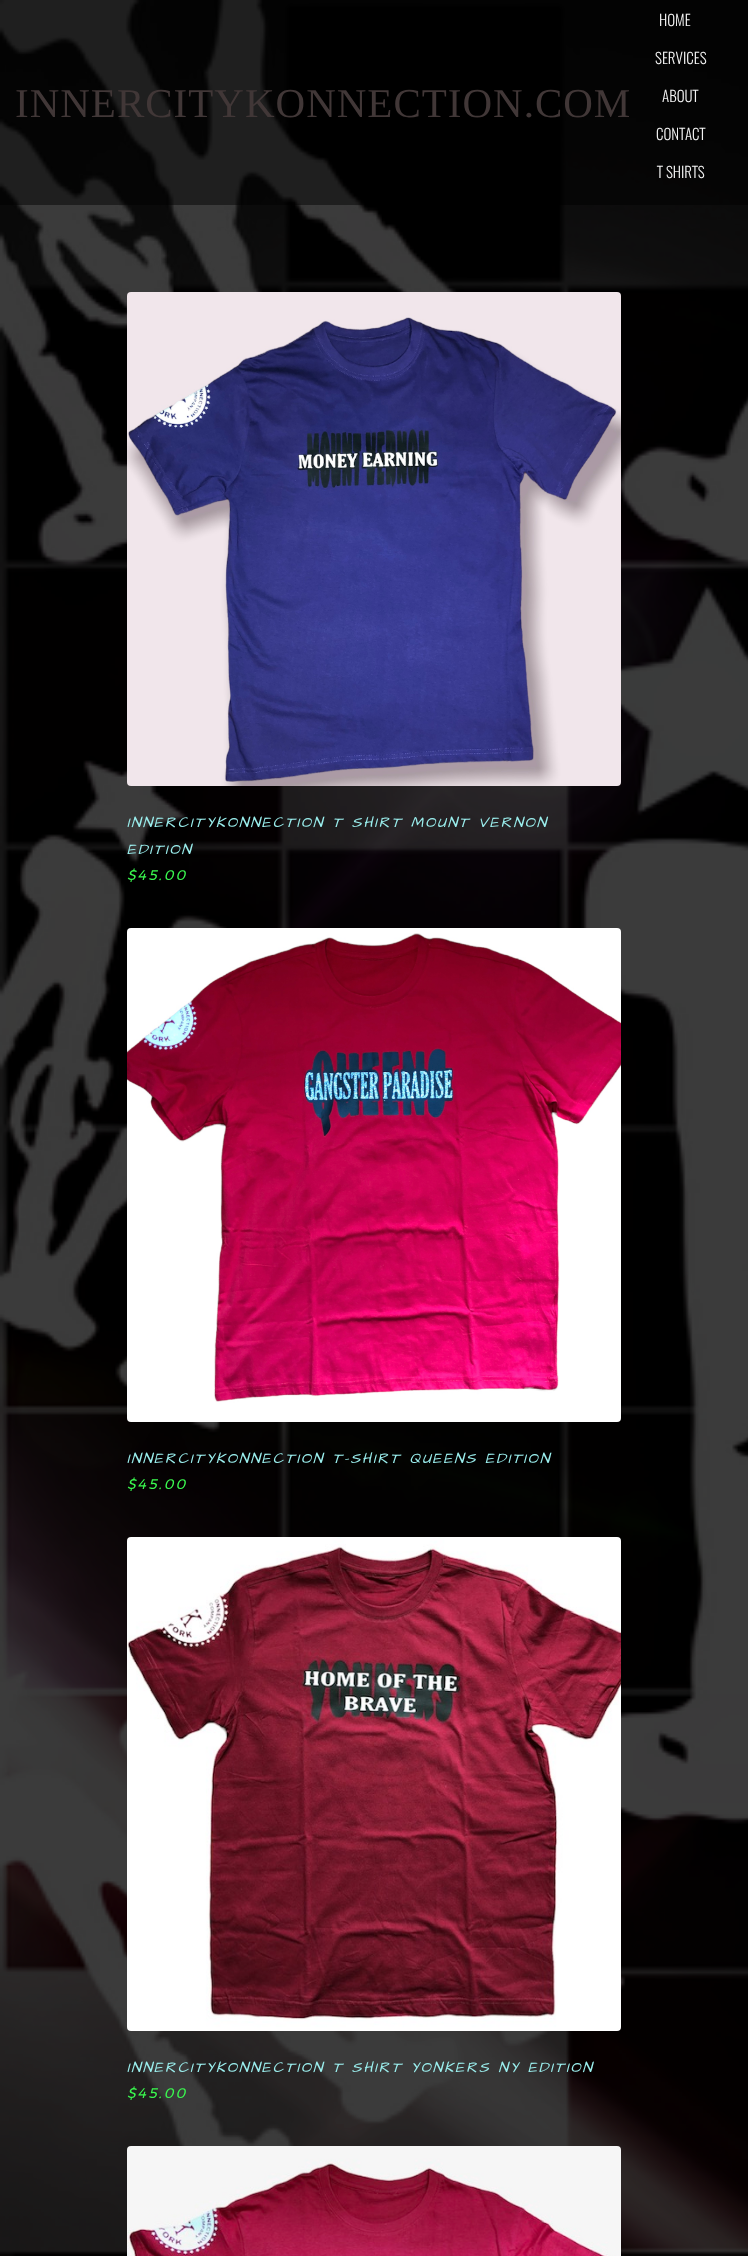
<?xml version="1.0" encoding="UTF-8"?>
<svg xmlns="http://www.w3.org/2000/svg" width="748" height="2256">
    <rect width="100%" height="100%" fill="#000000"/>
    <image x="0" y="0" width="748" height="2256" href="img_01.png"/>
    <rect x="0" y="0" width="748" height="205" fill="#000000" fill-opacity="0.88"/>
    <text x="15" y="117" font-family="Liberation Serif" font-size="41" letter-spacing="1" fill="#413737">INNERCITYKONNECTION.COM</text>
    <text x="659" y="26" font-family="Oswald" font-size="15" font-weight="300" fill="#F3F3F3">HOME</text>
    <text x="655" y="64" font-family="Oswald" font-size="15" font-weight="300" fill="#F3F3F3">SERVICES</text>
    <text x="662" y="102" font-family="Oswald" font-size="15" font-weight="300" fill="#F3F3F3">ABOUT</text>
    <text x="656" y="140" font-family="Oswald" font-size="15" font-weight="300" fill="#F3F3F3">CONTACT</text>
    <text x="657" y="178" font-family="Oswald" font-size="15" font-weight="300" fill="#F3F3F3">T SHIRTS</text>
    <image x="127" y="292" width="494" height="494" href="img_02.png"/>
    <text font-family="Architects Daughter" font-size="15" font-style="italic" letter-spacing="2" fill="#9BEFEE">
        <tspan x="127" y="827">INNERCITYKONNECTION T SHIRT MOUNT VERNON</tspan>
        <tspan x="127" y="854">EDITION</tspan>
    </text>
    <text x="127" y="880" font-family="Montserrat" font-size="14" font-style="italic" letter-spacing="2" fill="#3AF84F">$45.00</text>
    <image x="127" y="928" width="494" height="494" href="img_03.png"/>
    <text x="127" y="1463" font-family="Architects Daughter" font-size="15" font-style="italic" letter-spacing="2" fill="#9BEFEE">INNERCITYKONNECTION T-SHIRT QUEENS EDITION</text>
    <text x="127" y="1489" font-family="Montserrat" font-size="14" font-style="italic" letter-spacing="2" fill="#3AF84F">$45.00</text>
    <image x="127" y="1537" width="494" height="494" href="img_04.png"/>
    <text x="127" y="2072" font-family="Architects Daughter" font-size="15" font-style="italic" letter-spacing="2" fill="#9BEFEE">INNERCITYKONNECTION T SHIRT YONKERS NY EDITION</text>
    <text x="127" y="2098" font-family="Montserrat" font-size="14" font-style="italic" letter-spacing="2" fill="#3AF84F">$45.00</text>
    <image x="127" y="2146" width="494" height="110" href="img_05.png"/>
</svg>
